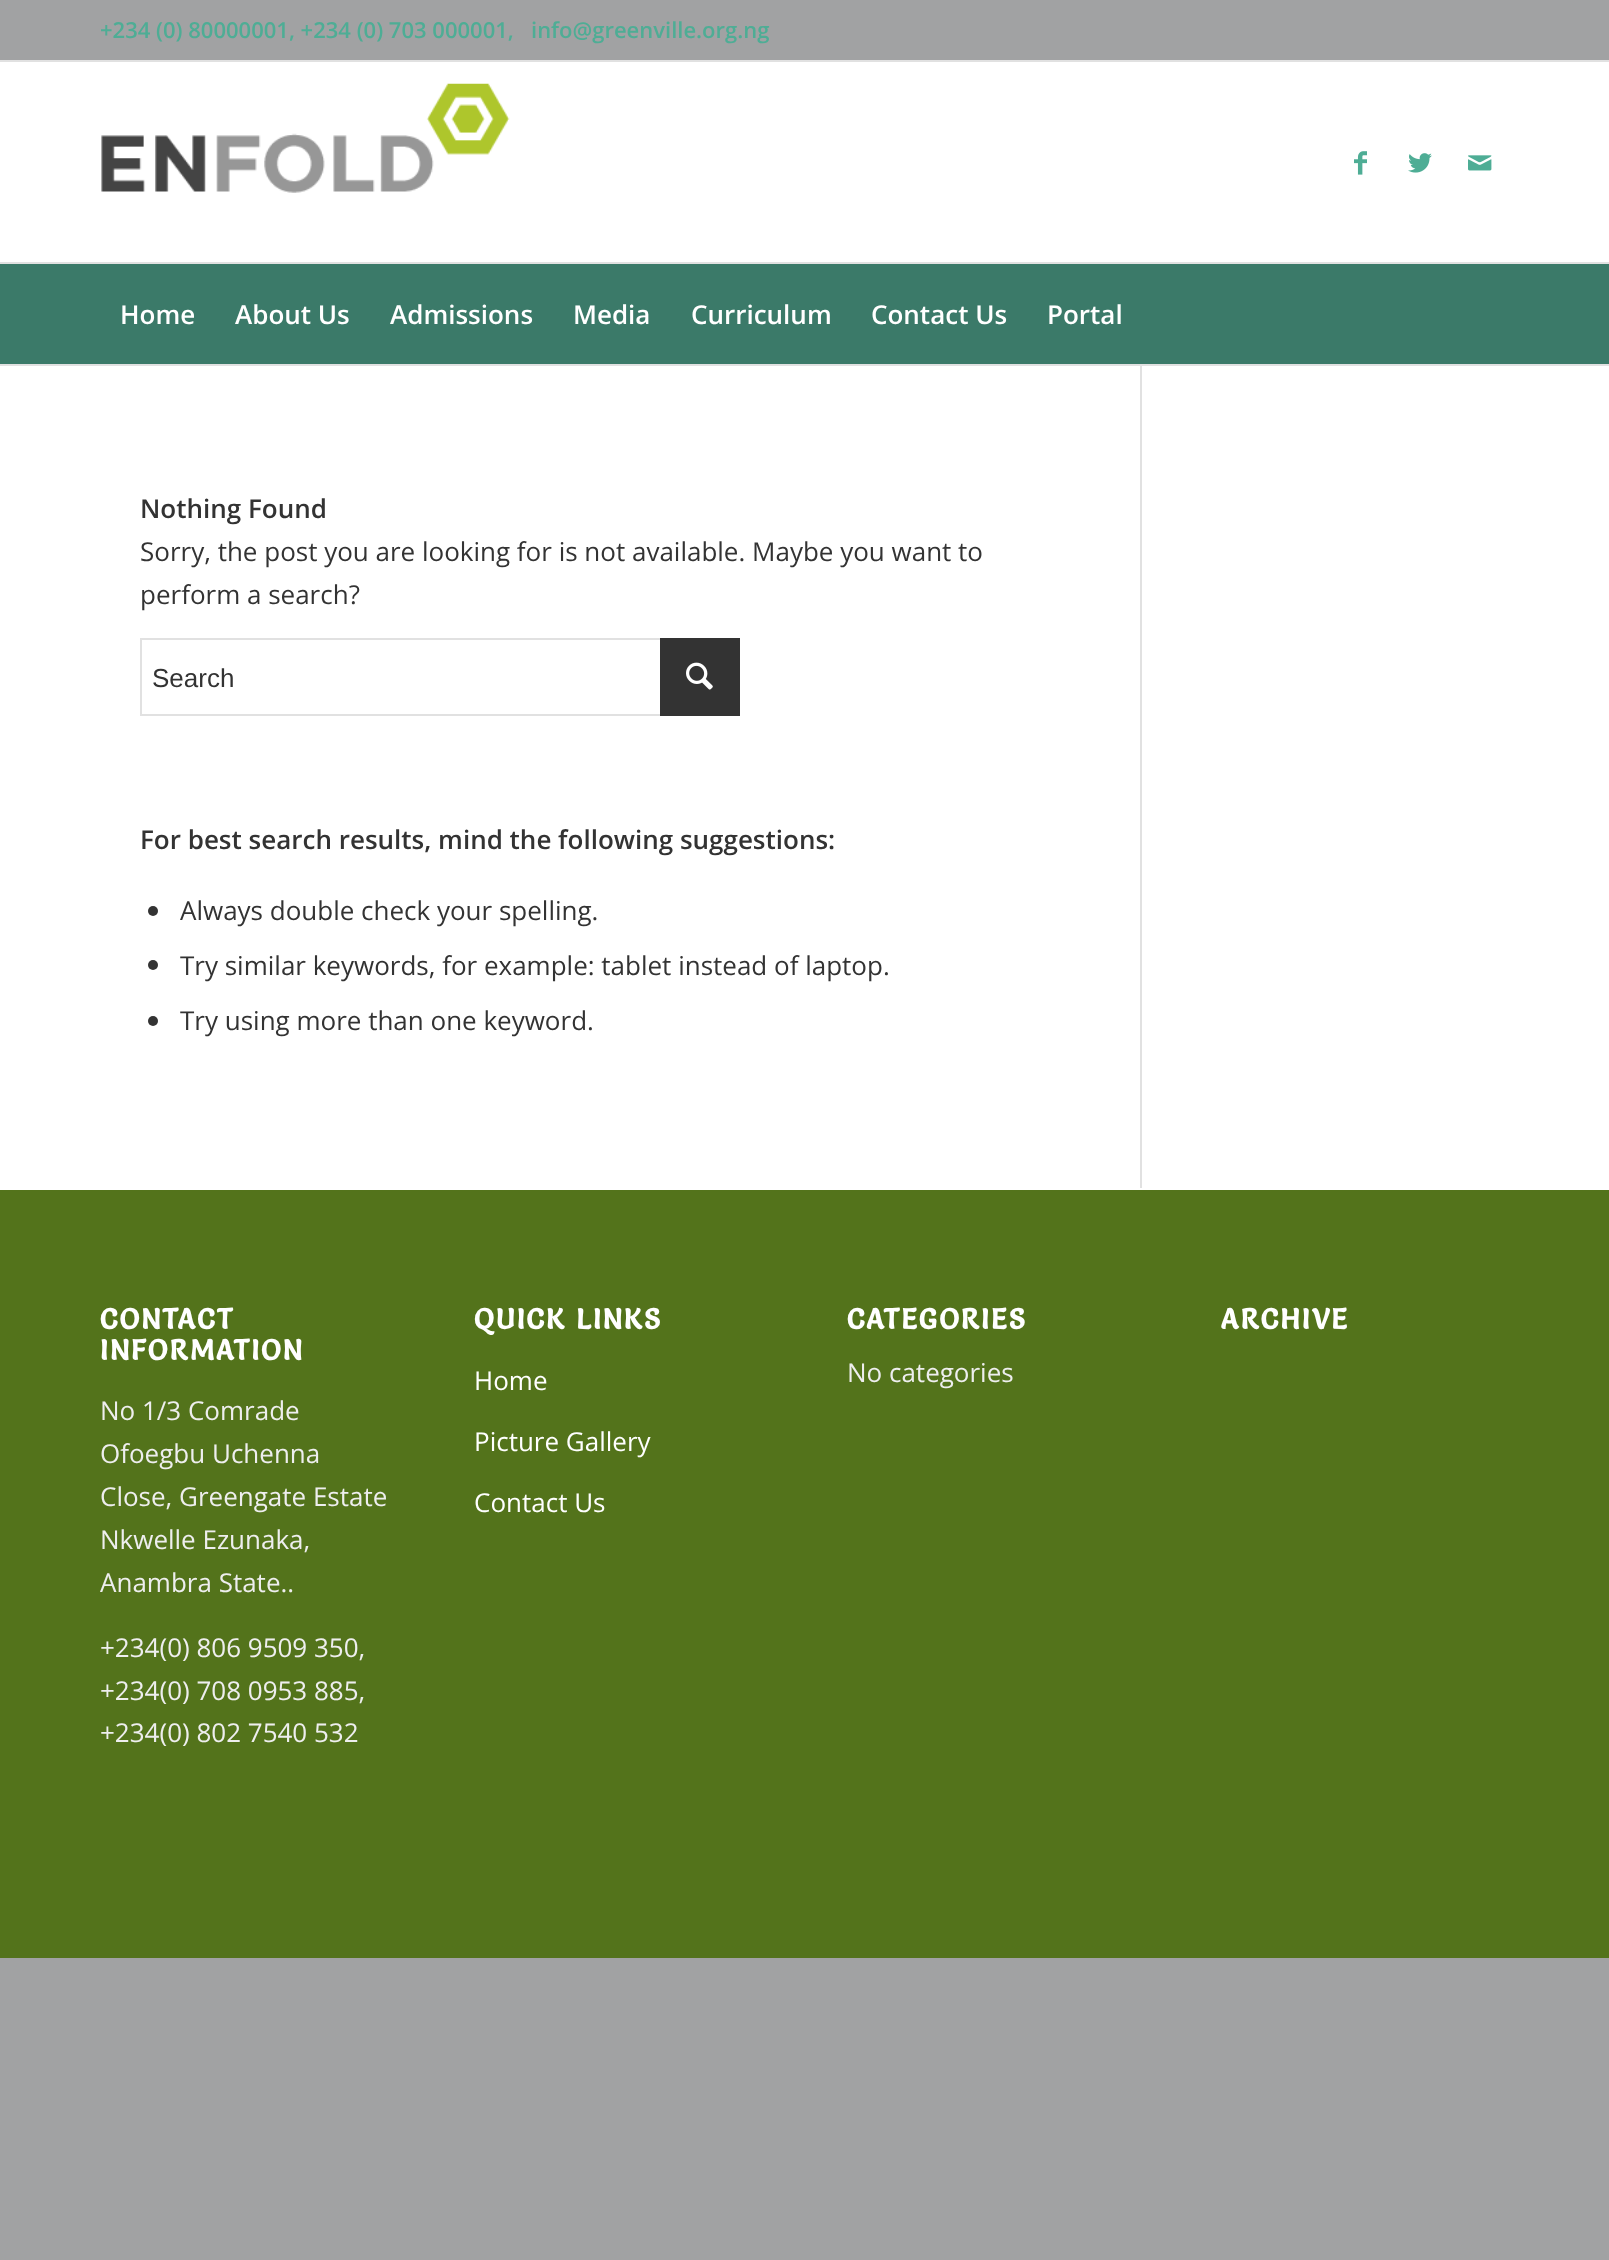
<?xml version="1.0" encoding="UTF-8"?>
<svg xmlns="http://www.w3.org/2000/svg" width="1609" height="2260">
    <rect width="100%" height="100%" fill="#A1A2A3"/>
    <rect x="0" y="62" width="1609" height="1128" fill="#FFFFFF"/>
    <rect x="0" y="60" width="1609" height="2" fill="#E1E1E1"/>
    <text x="100" y="38" font-family="Open Sans" font-size="22" font-weight="600" fill="#4EAD95">+234 (0) 80000001, +234 (0) 703 000001,</text>
    <text x="531" y="38" font-family="Open Sans" font-size="22" font-weight="600" fill="#4EAD95">info@greenville.org.ng</text>
    <rect x="0" y="364" width="1609" height="2" fill="#E1E1E1"/>
    <image x="101" y="83" width="409" height="110" href="img_01.png"/>
    <image x="1354" y="151" width="13" height="24" href="img_02.png"/>
    <image x="1408" y="153" width="24" height="20" href="img_03.png"/>
    <image x="1468" y="155" width="24" height="16" href="img_04.png"/>
    <rect x="0" y="264" width="1609" height="100" fill="#3B7A69"/>
    <rect x="0" y="262" width="1609" height="2" fill="#E1E1E1"/>
    <text x="120" y="324" font-family="Open Sans" font-size="26" font-weight="600" fill="#FFFFFF">Home</text>
    <text x="235" y="324" font-family="Open Sans" font-size="26" font-weight="600" fill="#FFFFFF">About Us</text>
    <text x="390" y="324" font-family="Open Sans" font-size="26" font-weight="600" fill="#FFFFFF">Admissions</text>
    <text x="573" y="324" font-family="Open Sans" font-size="26" font-weight="600" fill="#FFFFFF">Media</text>
    <text x="691" y="324" font-family="Open Sans" font-size="26" font-weight="600" fill="#FFFFFF">Curriculum</text>
    <text x="871" y="324" font-family="Open Sans" font-size="26" font-weight="600" fill="#FFFFFF">Contact Us</text>
    <text x="1047" y="324" font-family="Open Sans" font-size="26" font-weight="600" fill="#FFFFFF">Portal</text>
    <rect x="1140" y="366" width="2" height="822" fill="#E1E1E1"/>
    <text x="140" y="518" font-family="Open Sans" font-size="26" font-weight="600" fill="#333333">Nothing Found</text>
    <text font-family="Open Sans" font-size="26" fill="#333333">
        <tspan x="140" y="561">Sorry, the post you are looking for is not available. Maybe you want to</tspan>
        <tspan x="140" y="604">perform a search?</tspan>
    </text>
    <rect x="141" y="639" width="598" height="76" fill="none" stroke="#E1E1E1" stroke-width="2"/>
    <text x="152" y="687" font-family="Liberation Sans" font-size="26" fill="#333333">Search</text>
    <rect x="660" y="638" width="80" height="78" fill="#333333"/>
    <image x="686" y="662" width="27" height="28" href="img_05.png"/>
    <text x="140" y="849" font-family="Open Sans" font-size="26" font-weight="600" fill="#333333">For best search results, mind the following suggestions:</text>
    <circle cx="153" cy="911" r="5" fill="#333333"/>
    <text x="180" y="920" font-family="Open Sans" font-size="26" fill="#333333">Always double check your spelling.</text>
    <circle cx="153" cy="965" r="5" fill="#333333"/>
    <text x="180" y="975" font-family="Open Sans" font-size="26" fill="#333333">Try similar keywords, for example: tablet instead of laptop.</text>
    <circle cx="153" cy="1021" r="5" fill="#333333"/>
    <text x="180" y="1030" font-family="Open Sans" font-size="26" fill="#333333">Try using more than one keyword.</text>
    <rect x="0" y="1190" width="1609" height="768" fill="#53731B"/>
    <text font-family="Salsa" font-size="28.5" font-weight="700" letter-spacing="2" fill="#FFFFFF">
        <tspan x="100" y="1329">CONTACT</tspan>
        <tspan x="100" y="1360">INFORMATION</tspan>
    </text>
    <text font-family="Open Sans" font-size="26" fill="#EEEEEE">
        <tspan x="100" y="1420">No 1/3 Comrade</tspan>
        <tspan x="100" y="1463">Ofoegbu Uchenna</tspan>
        <tspan x="100" y="1506">Close, Greengate Estate</tspan>
        <tspan x="100" y="1549">Nkwelle Ezunaka,</tspan>
        <tspan x="100" y="1592">Anambra State..</tspan>
    </text>
    <text font-family="Open Sans" font-size="26" fill="#EEEEEE">
        <tspan x="100" y="1657">+234(0) 806 9509 350,</tspan>
        <tspan x="100" y="1700">+234(0) 708 0953 885,</tspan>
        <tspan x="100" y="1742">+234(0) 802 7540 532</tspan>
    </text>
    <text x="474" y="1329" font-family="Salsa" font-size="28.5" font-weight="700" letter-spacing="2" fill="#FFFFFF">QUICK LINKS</text>
    <text x="474" y="1390" font-family="Open Sans" font-size="26" fill="#FFFFFF">Home</text>
    <text x="474" y="1451" font-family="Open Sans" font-size="26" fill="#FFFFFF">Picture Gallery</text>
    <text x="474" y="1512" font-family="Open Sans" font-size="26" fill="#FFFFFF">Contact Us</text>
    <text x="847" y="1329" font-family="Salsa" font-size="28.5" font-weight="700" letter-spacing="2" fill="#FFFFFF">CATEGORIES</text>
    <text x="847" y="1382" font-family="Open Sans" font-size="26" fill="#EEEEEE">No categories</text>
    <text x="1221" y="1329" font-family="Salsa" font-size="28.5" font-weight="700" letter-spacing="2" fill="#FFFFFF">ARCHIVE</text>
</svg>
